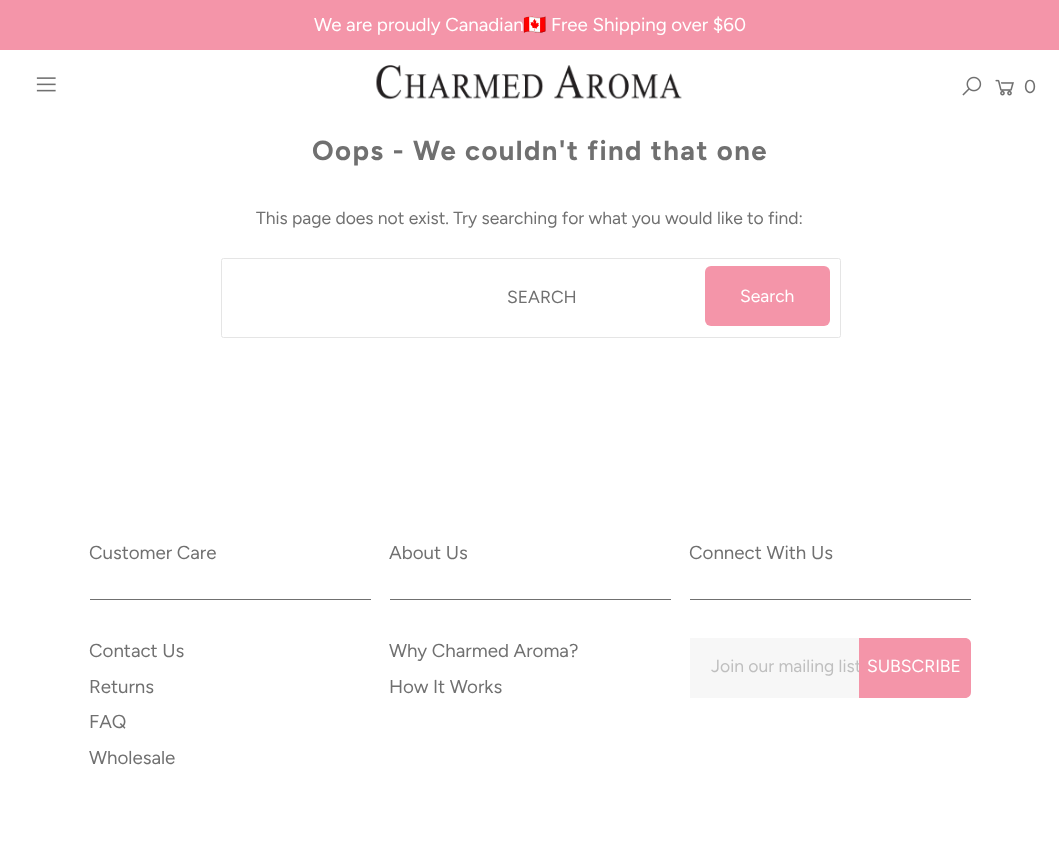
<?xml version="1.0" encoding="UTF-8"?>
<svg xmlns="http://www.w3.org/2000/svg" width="1059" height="844">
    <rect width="100%" height="100%" fill="#FFFFFF"/>
    <rect x="0" y="0" width="1059" height="50" fill="#F495A9"/>
    <text x="314" y="31" font-family="Figtree" font-size="18.75" fill="#FFFFFF">We are proudly Canadian</text>
    <text x="523" y="31" font-family="Noto Color Emoji" font-size="18.75" fill="#FFFFFF">🇨🇦</text>
    <text x="551" y="31" font-family="Figtree" font-size="18.75" fill="#FFFFFF">Free Shipping over $60</text>
    <image x="36" y="77" width="20" height="15" href="img_01.png"/>
    <image x="376" y="65" width="306" height="35" href="img_02.png"/>
    <image x="962" y="76" width="20" height="20" href="img_03.png"/>
    <image x="995" y="79" width="19" height="17" href="img_04.png"/>
    <text x="1024" y="93" font-family="Figtree" font-size="18.75" fill="#707070">0</text>
    <text x="312" y="160" font-family="Figtree" font-size="27.5" font-weight="700" letter-spacing="1.4" fill="#707070">Oops - We couldn't find that one</text>
    <text x="256" y="224" font-family="Figtree" font-size="17.5" fill="#707070">This page does not exist. Try searching for what you would like to find:</text>
    <rect x="221.5" y="258.5" width="619" height="79" rx="2" fill="none" stroke="#E5E5E5"/>
    <text x="507" y="303" font-family="Figtree" font-size="17.5" fill="#707070">SEARCH</text>
    <rect x="705" y="266" width="125" height="60" rx="6" fill="#F495A9"/>
    <text x="740" y="302" font-family="Figtree" font-size="17.5" fill="#FFFFFF">Search</text>
    <rect x="90" y="599" width="281" height="1" fill="#707070"/>
    <text x="89" y="559" font-family="Figtree" font-size="18.75" fill="#707070">Customer Care</text>
    <text font-family="Figtree" font-size="18.75" fill="#707070">
        <tspan x="89" y="657">Contact Us</tspan>
        <tspan x="89" y="693">Returns</tspan>
        <tspan x="89" y="728">FAQ</tspan>
        <tspan x="89" y="764">Wholesale</tspan>
    </text>
    <rect x="390" y="599" width="281" height="1" fill="#707070"/>
    <text x="389" y="559" font-family="Figtree" font-size="18.75" fill="#707070">About Us</text>
    <text font-family="Figtree" font-size="18.75" fill="#707070">
        <tspan x="389" y="657">Why Charmed Aroma?</tspan>
        <tspan x="389" y="693">How It Works</tspan>
    </text>
    <rect x="690" y="599" width="281" height="1" fill="#707070"/>
    <text x="689" y="559" font-family="Figtree" font-size="18.75" fill="#707070">Connect With Us</text>
    <rect x="690" y="638" width="169" height="60" fill="#F7F7F7"/>
    <text x="711" y="672" font-family="Figtree" font-size="17.5" fill="#BFBFBF">Join our mailing list</text>
    <path d="M 859 638 H 965 C 968.5 638 971 640.5 971 644 V 692 C 971 695.5 968.5 698 965 698 H 859 Z" fill="#F495A9"/>
    <text x="867" y="672" font-family="Figtree" font-size="17.5" fill="#FFFFFF">SUBSCRIBE</text>
</svg>
